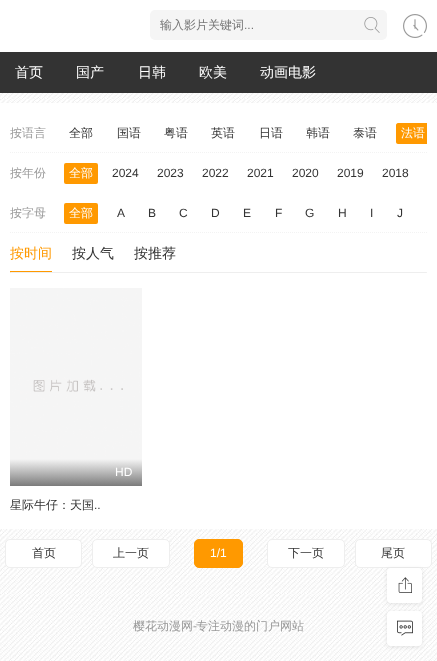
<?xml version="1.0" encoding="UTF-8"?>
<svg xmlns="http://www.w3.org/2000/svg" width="437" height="661">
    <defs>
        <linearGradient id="g1" gradientUnits="userSpaceOnUse" x1="76" y1="459" x2="76" y2="486"><stop offset="0" stop-color="#F5F5F5"/><stop offset="1" stop-color="#7B7B7B"/></linearGradient>
        <filter id="blur1" x="-50%" y="-200%" width="200%" height="500%"><feGaussianBlur stdDeviation="2"/></filter>
    </defs>
    <rect width="100%" height="100%" fill="#FFFFFF"/>
    <image x="0" y="93" width="437" height="568" href="img_01.png"/>
    <rect x="150" y="10" width="237" height="30" rx="5" fill="#F5F5F5"/>
    <text x="160" y="29" font-family="WenQuanYi Zen Hei" font-size="12" font-weight="500" fill="#757575">输入影片关键词</text>
    <text x="244" y="29" font-family="Liberation Sans" font-size="12" fill="#757575">...</text>
    <image x="364" y="17" width="16" height="16" href="img_02.png"/>
    <image x="403" y="14" width="24" height="24" href="img_03.png"/>
    <rect x="0" y="52" width="437" height="41" fill="#333333"/>
    <text x="15" y="77" font-family="WenQuanYi Zen Hei" font-size="14" font-weight="500" fill="#FFFFFF">首页</text>
    <text x="76" y="77" font-family="WenQuanYi Zen Hei" font-size="14" font-weight="500" fill="#FFFFFF">国产</text>
    <text x="138" y="77" font-family="WenQuanYi Zen Hei" font-size="14" font-weight="500" fill="#FFFFFF">日韩</text>
    <text x="199" y="77" font-family="WenQuanYi Zen Hei" font-size="14" font-weight="500" fill="#FFFFFF">欧美</text>
    <text x="260" y="77" font-family="WenQuanYi Zen Hei" font-size="14" font-weight="500" fill="#FFFFFF">动画电影</text>
    <rect x="0" y="103" width="437" height="426" fill="#FFFFFF"/>
    <text x="10" y="137" font-family="WenQuanYi Zen Hei" font-size="12" font-weight="500" fill="#999999">按语言</text>
    <text x="69" y="137" font-family="WenQuanYi Zen Hei" font-size="12" font-weight="500" fill="#333333">全部</text>
    <text x="117" y="137" font-family="WenQuanYi Zen Hei" font-size="12" font-weight="500" fill="#333333">国语</text>
    <text x="164" y="137" font-family="WenQuanYi Zen Hei" font-size="12" font-weight="500" fill="#333333">粤语</text>
    <text x="211" y="137" font-family="WenQuanYi Zen Hei" font-size="12" font-weight="500" fill="#333333">英语</text>
    <text x="259" y="137" font-family="WenQuanYi Zen Hei" font-size="12" font-weight="500" fill="#333333">日语</text>
    <text x="306" y="137" font-family="WenQuanYi Zen Hei" font-size="12" font-weight="500" fill="#333333">韩语</text>
    <text x="353" y="137" font-family="WenQuanYi Zen Hei" font-size="12" font-weight="500" fill="#333333">泰语</text>
    <path d="M 398 123 H 427 V 144 H 398 C 397 144 396 143 396 142 V 125 C 396 124 397 123 398 123 Z" fill="#FF9900"/>
    <text x="401" y="137" font-family="WenQuanYi Zen Hei" font-size="12" font-weight="500" fill="#FFFFFF">法语</text>
    <path d="M 10 152.5 H 427" fill="none" stroke="#EEEEEE" stroke-width="0.7" stroke-dasharray="1 1"/>
    <text x="10" y="177" font-family="WenQuanYi Zen Hei" font-size="12" font-weight="500" fill="#999999">按年份</text>
    <rect x="64" y="163" width="34" height="21" rx="2" fill="#FF9900"/>
    <text x="69" y="177" font-family="WenQuanYi Zen Hei" font-size="12" font-weight="500" fill="#FFFFFF">全部</text>
    <text x="112" y="177" font-family="Liberation Sans" font-size="12" fill="#333333">2024</text>
    <text x="157" y="177" font-family="Liberation Sans" font-size="12" fill="#333333">2023</text>
    <text x="202" y="177" font-family="Liberation Sans" font-size="12" fill="#333333">2022</text>
    <text x="247" y="177" font-family="Liberation Sans" font-size="12" fill="#333333">2021</text>
    <text x="292" y="177" font-family="Liberation Sans" font-size="12" fill="#333333">2020</text>
    <text x="337" y="177" font-family="Liberation Sans" font-size="12" fill="#333333">2019</text>
    <text x="382" y="177" font-family="Liberation Sans" font-size="12" fill="#333333">2018</text>
    <text x="10" y="217" font-family="WenQuanYi Zen Hei" font-size="12" font-weight="500" fill="#999999">按字母</text>
    <rect x="64" y="203" width="34" height="21" rx="2" fill="#FF9900"/>
    <text x="69" y="217" font-family="WenQuanYi Zen Hei" font-size="12" font-weight="500" fill="#FFFFFF">全部</text>
    <text x="117" y="217" font-family="Liberation Sans" font-size="12" fill="#333333">A</text>
    <text x="148" y="217" font-family="Liberation Sans" font-size="12" fill="#333333">B</text>
    <text x="179" y="217" font-family="Liberation Sans" font-size="12" fill="#333333">C</text>
    <text x="211" y="217" font-family="Liberation Sans" font-size="12" fill="#333333">D</text>
    <text x="243" y="217" font-family="Liberation Sans" font-size="12" fill="#333333">E</text>
    <text x="275" y="217" font-family="Liberation Sans" font-size="12" fill="#333333">F</text>
    <text x="305" y="217" font-family="Liberation Sans" font-size="12" fill="#333333">G</text>
    <text x="338" y="217" font-family="Liberation Sans" font-size="12" fill="#333333">H</text>
    <text x="370" y="217" font-family="Liberation Sans" font-size="12" fill="#333333">I</text>
    <text x="397" y="217" font-family="Liberation Sans" font-size="12" fill="#333333">J</text>
    <path d="M 10 232.5 H 427" fill="none" stroke="#EEEEEE" stroke-width="0.7" stroke-dasharray="1 1"/>
    <text x="10" y="258" font-family="WenQuanYi Zen Hei" font-size="14" font-weight="500" fill="#FF9900">按时间</text>
    <rect x="10" y="271" width="42" height="2" fill="#FF9900"/>
    <text x="72" y="258" font-family="WenQuanYi Zen Hei" font-size="14" font-weight="500" fill="#333333">按人气</text>
    <text x="134" y="258" font-family="WenQuanYi Zen Hei" font-size="14" font-weight="500" fill="#333333">按推荐</text>
    <rect x="10" y="272" width="417" height="1" rx="0.5" fill="#EEEEEE"/>
    <image x="10" y="288" width="132" height="171" href="img_04.png"/>
    <rect x="10" y="459" width="132" height="27" fill="url(#g1)"/>
    <text x="115" y="476" font-family="Liberation Sans" font-size="12" fill="#FFFFFF">HD</text>
    <text x="10" y="509" font-family="WenQuanYi Zen Hei" font-size="12" font-weight="500" fill="#333333">星际牛仔：天国</text>
    <text x="94" y="509" font-family="Liberation Sans" font-size="12" fill="#333333">..</text>
    <rect x="5.5" y="539.5" width="76" height="28" rx="4.5" fill="#FFFFFF" stroke="#EEEEEE"/>
    <text x="32" y="557" font-family="WenQuanYi Zen Hei" font-size="12" font-weight="500" fill="#333333">首页</text>
    <rect x="92.5" y="539.5" width="77" height="28" rx="4.5" fill="#FFFFFF" stroke="#EEEEEE"/>
    <text x="113" y="557" font-family="WenQuanYi Zen Hei" font-size="12" font-weight="500" fill="#333333">上一页</text>
    <rect x="194.5" y="539.5" width="48" height="28" rx="4.5" fill="#FF9900" stroke="#FF9900"/>
    <text x="210" y="557" font-family="Liberation Sans" font-size="12" fill="#FFFFFF">1/1</text>
    <rect x="267.5" y="539.5" width="77" height="28" rx="4.5" fill="#FFFFFF" stroke="#EEEEEE"/>
    <text x="288" y="557" font-family="WenQuanYi Zen Hei" font-size="12" font-weight="500" fill="#333333">下一页</text>
    <rect x="355.5" y="539.5" width="76" height="28" rx="4.5" fill="#FFFFFF" stroke="#EEEEEE"/>
    <text x="381" y="557" font-family="WenQuanYi Zen Hei" font-size="12" font-weight="500" fill="#333333">尾页</text>
    <text x="133" y="630" font-family="WenQuanYi Zen Hei" font-size="12" font-weight="500" fill="#999999">樱花动漫网</text>
    <text x="193" y="630" font-family="Liberation Sans" font-size="12" fill="#999999">-</text>
    <text x="196" y="630" font-family="WenQuanYi Zen Hei" font-size="12" font-weight="500" fill="#999999">专注动漫的门户网站</text>
    <rect x="387" y="569" width="35" height="35" rx="4" fill="#000000" fill-opacity="0.1" filter="url(#blur1)"/>
    <rect x="387" y="568" width="35" height="35" rx="4" fill="#FFFFFF"/>
    <image x="398" y="577" width="14" height="16" href="img_05.png"/>
    <rect x="387" y="612" width="35" height="35" rx="4" fill="#000000" fill-opacity="0.1" filter="url(#blur1)"/>
    <rect x="387" y="611" width="35" height="35" rx="4" fill="#FFFFFF"/>
    <image x="397" y="620" width="16" height="16" href="img_06.png"/>
</svg>
